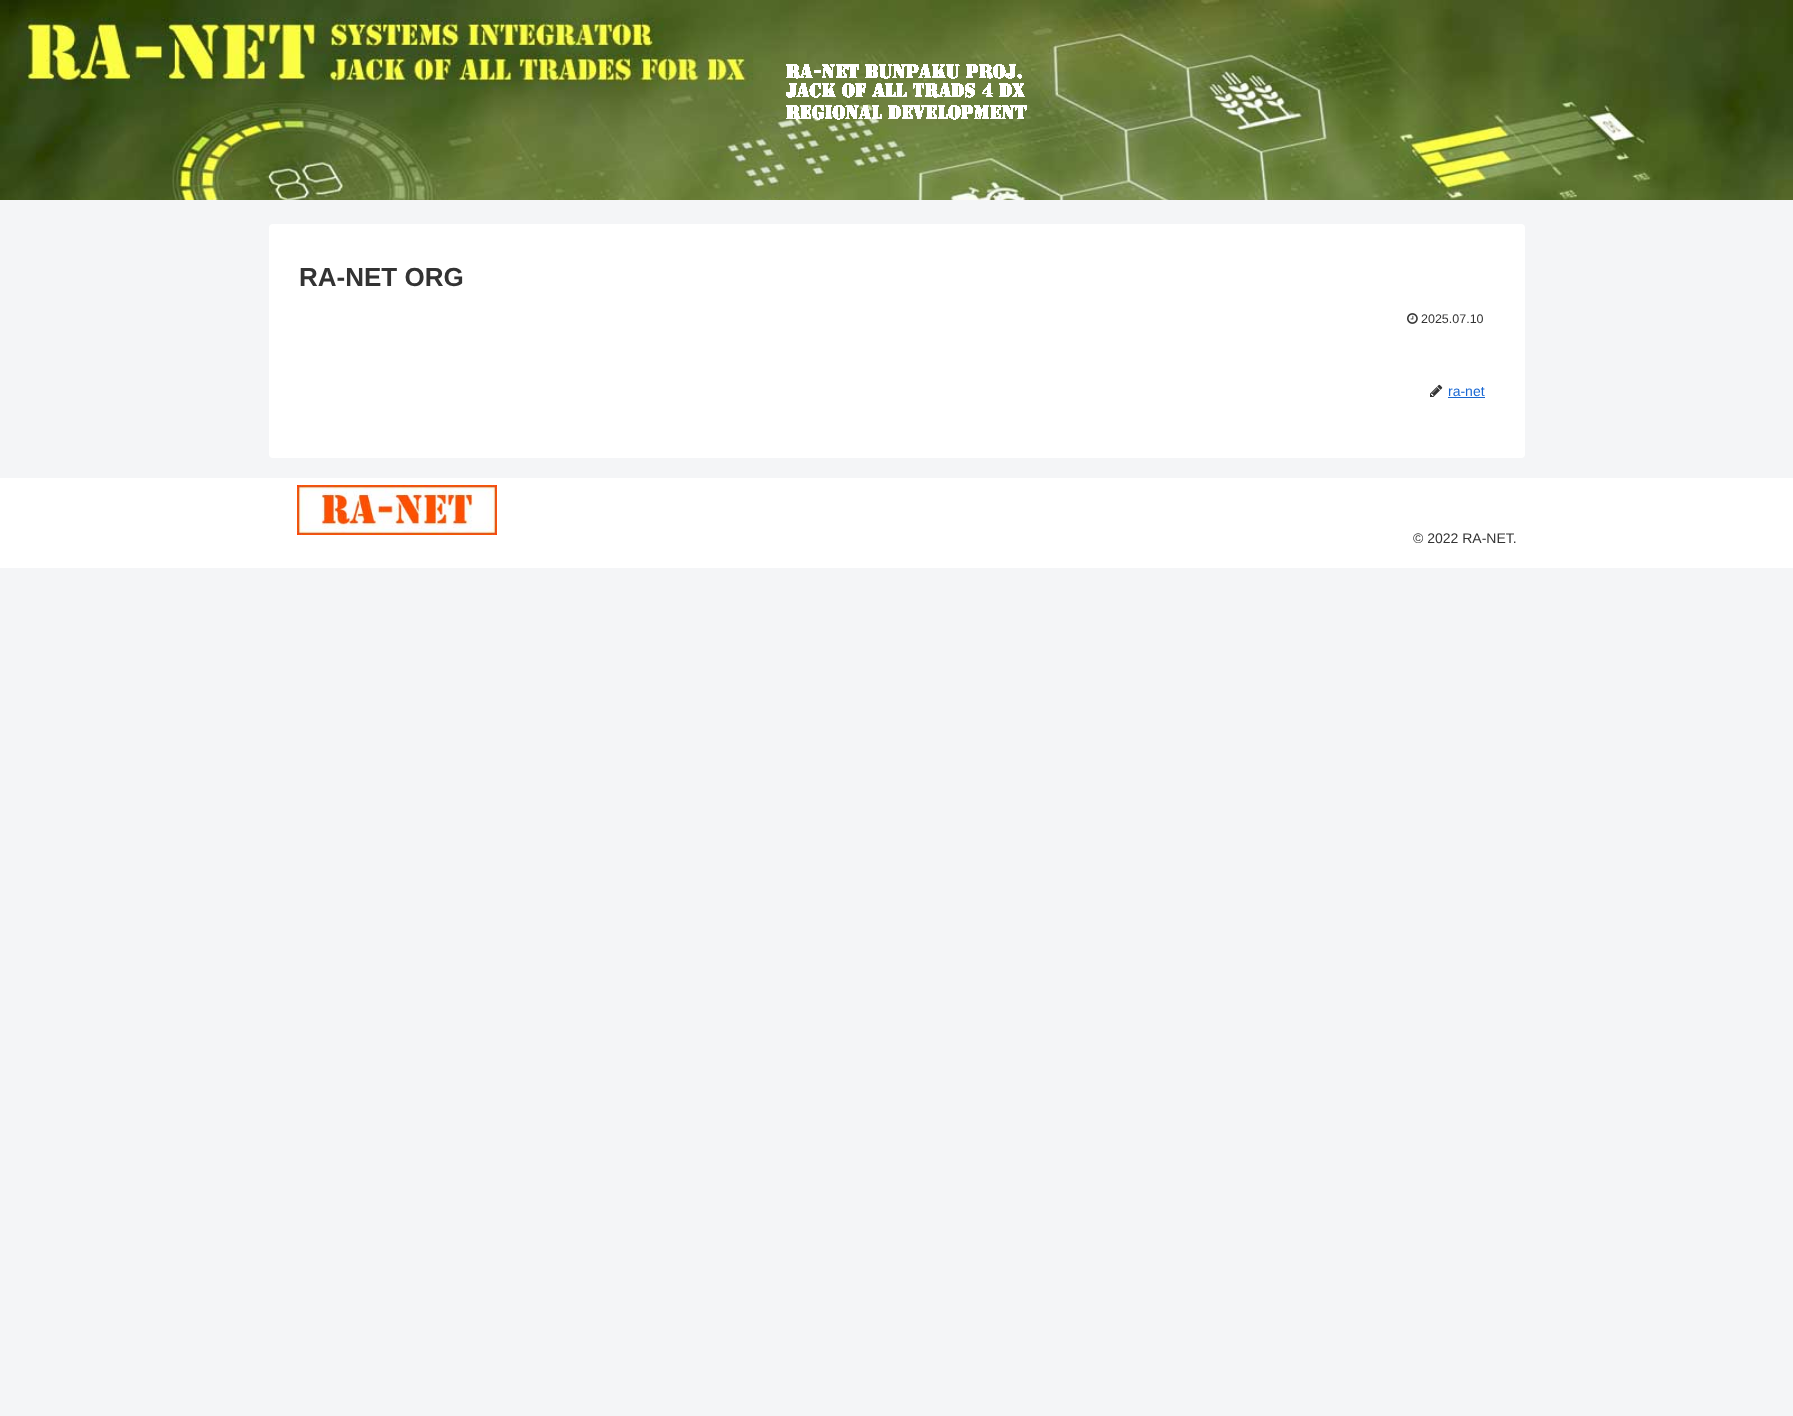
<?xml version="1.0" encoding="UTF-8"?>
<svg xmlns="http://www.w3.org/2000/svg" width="1793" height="1416">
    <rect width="100%" height="100%" fill="#F4F5F7"/>
    <image x="0" y="0" width="1793" height="200" href="img_01.png"/>
    <image x="786" y="64" width="241" height="56" href="img_02.png"/>
    <rect x="269" y="224" width="1256" height="234" rx="4" fill="#FFFFFF"/>
    <text x="299" y="286" font-family="Liberation Sans" font-size="26" font-weight="700" fill="#333333">RA-NET ORG</text>
    <image x="1407" y="313" width="11" height="11" href="img_03.png"/>
    <text x="1421" y="323" font-family="Liberation Sans" font-size="12.5" fill="#333333">2025.07.10</text>
    <image x="1430" y="384" width="13" height="13" href="img_04.png"/>
    <text x="1448" y="396" font-family="Liberation Sans" font-size="14" fill="#1967D2">ra-net</text>
    <rect x="1448" y="397" width="37" height="1" fill="#1967D2"/>
    <rect x="0" y="478" width="1793" height="90" fill="#FFFFFF"/>
    <image x="297" y="485" width="200" height="50" href="img_05.png"/>
    <text x="1413" y="543" font-family="Liberation Sans" font-size="14" fill="#333333">© 2022 RA-NET.</text>
</svg>
